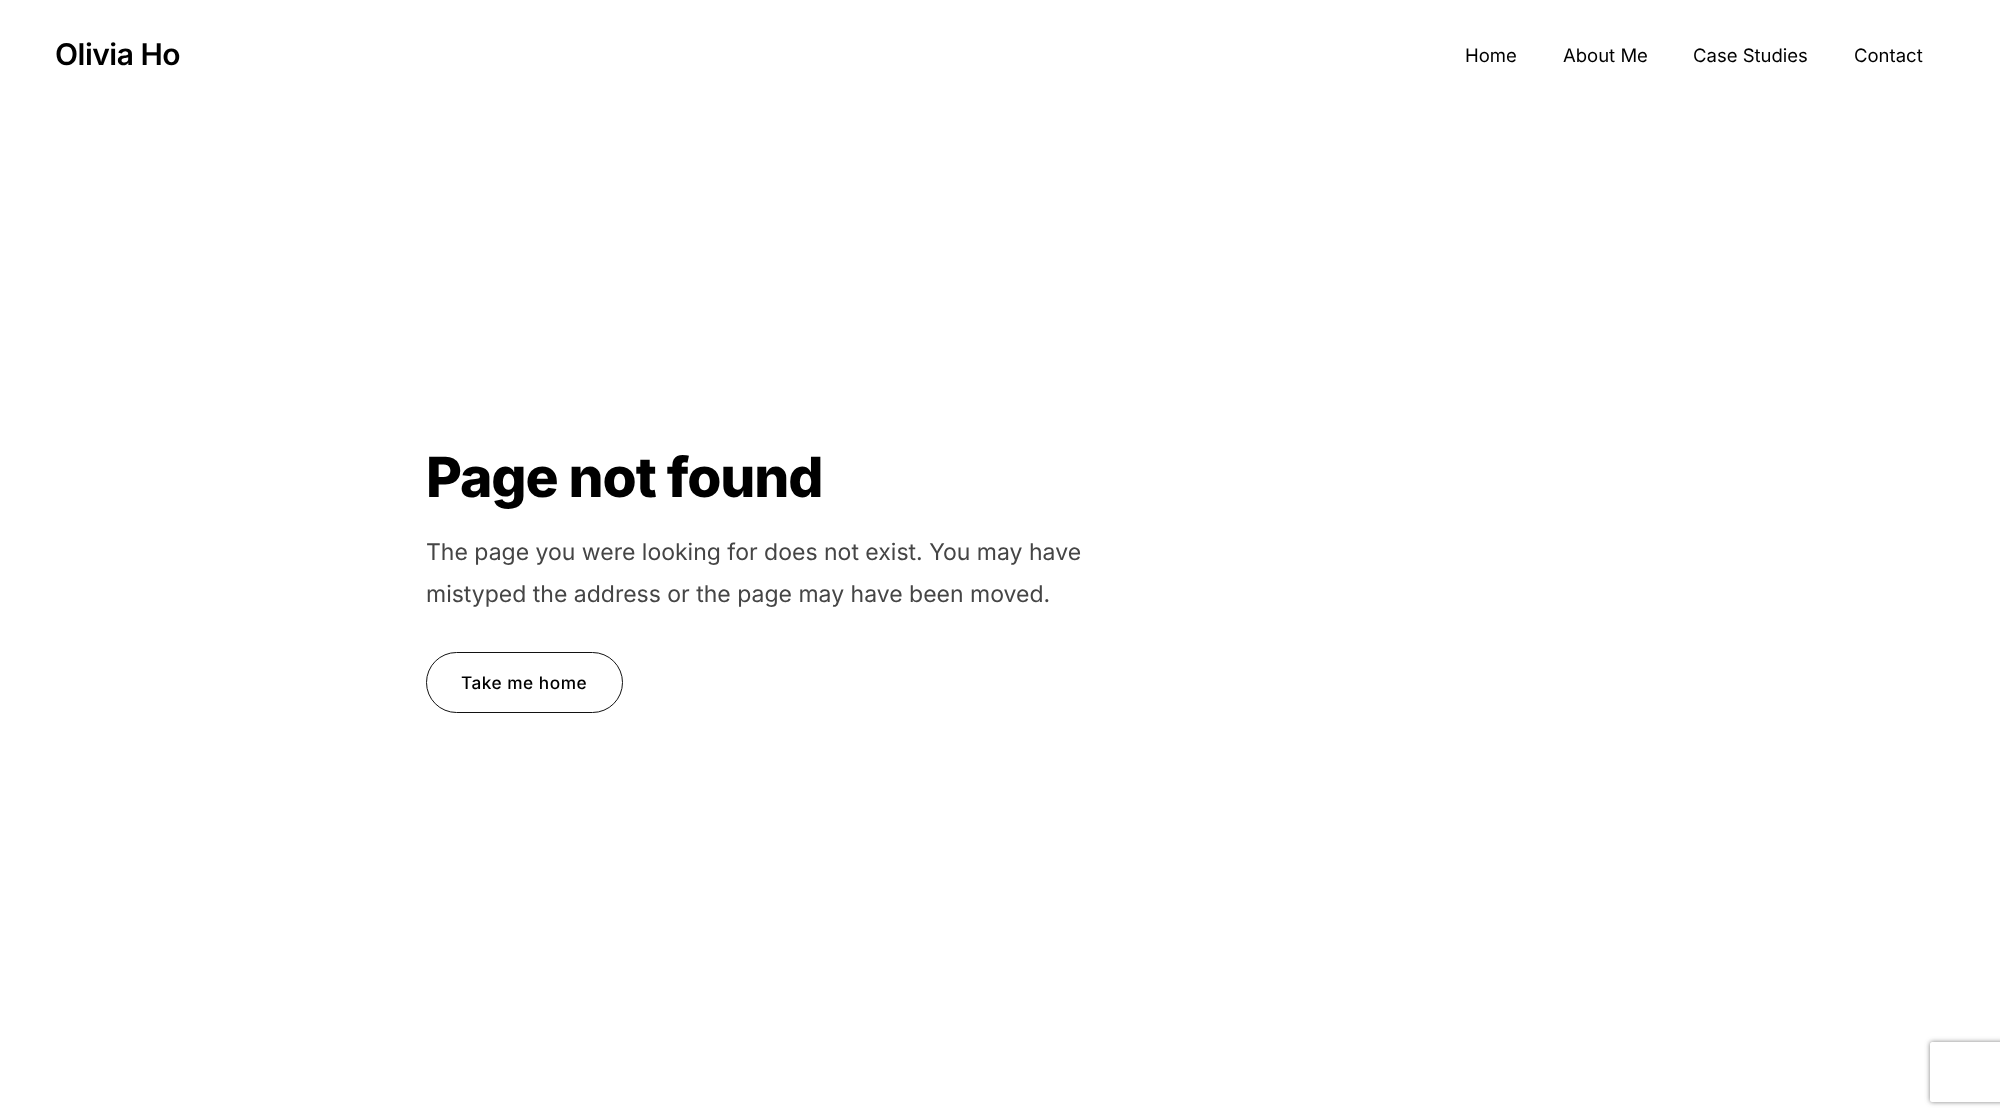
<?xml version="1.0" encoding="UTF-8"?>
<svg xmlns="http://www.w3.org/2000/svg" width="2000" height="1116">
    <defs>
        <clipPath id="clip1"><path d="M 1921 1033 H 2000 V 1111 H 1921 Z M 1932 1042 H 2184 C 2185 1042 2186 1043 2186 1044 V 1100 C 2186 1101 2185 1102 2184 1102 H 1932 C 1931 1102 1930 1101 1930 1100 V 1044 C 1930 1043 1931 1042 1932 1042 Z" clip-rule="evenodd"/></clipPath>
        <filter id="blur1" x="-50%" y="-200%" width="200%" height="500%"><feGaussianBlur stdDeviation="2.5"/></filter>
    </defs>
    <rect width="100%" height="100%" fill="#FFFFFF"/>
    <text x="55" y="65" font-family="Inter" font-size="30" font-weight="600" letter-spacing="-0.5" fill="#000000">Olivia Ho</text>
    <text x="1465" y="62" font-family="Inter" font-size="18.5" fill="#000000">Home</text>
    <text x="1563" y="62" font-family="Inter" font-size="18.5" fill="#000000">About Me</text>
    <text x="1693" y="62" font-family="Inter" font-size="18.5" fill="#000000">Case Studies</text>
    <text x="1854" y="62" font-family="Inter" font-size="18.5" fill="#000000">Contact</text>
    <text x="426" y="497" font-family="Inter" font-size="55.25" font-weight="800" letter-spacing="-1.1" fill="#000000">Page not found</text>
    <text font-family="Inter" font-size="23" fill="#454545">
        <tspan x="426" y="560">The page you were looking for does not exist. You may have</tspan>
        <tspan x="426" y="602">mistyped the address or the page may have been moved.</tspan>
    </text>
    <rect x="426.5" y="652.5" width="196" height="60" rx="30" fill="none" stroke="#121212"/>
    <text x="461" y="689" font-family="Inter" font-size="17.25" font-weight="500" letter-spacing="0.5" fill="#000000">Take me home</text>
    <g clip-path="url(#clip1)">
        <rect x="1930" y="1042" width="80" height="60" rx="2" fill="#808080" filter="url(#blur1)"/>
    </g>
</svg>
